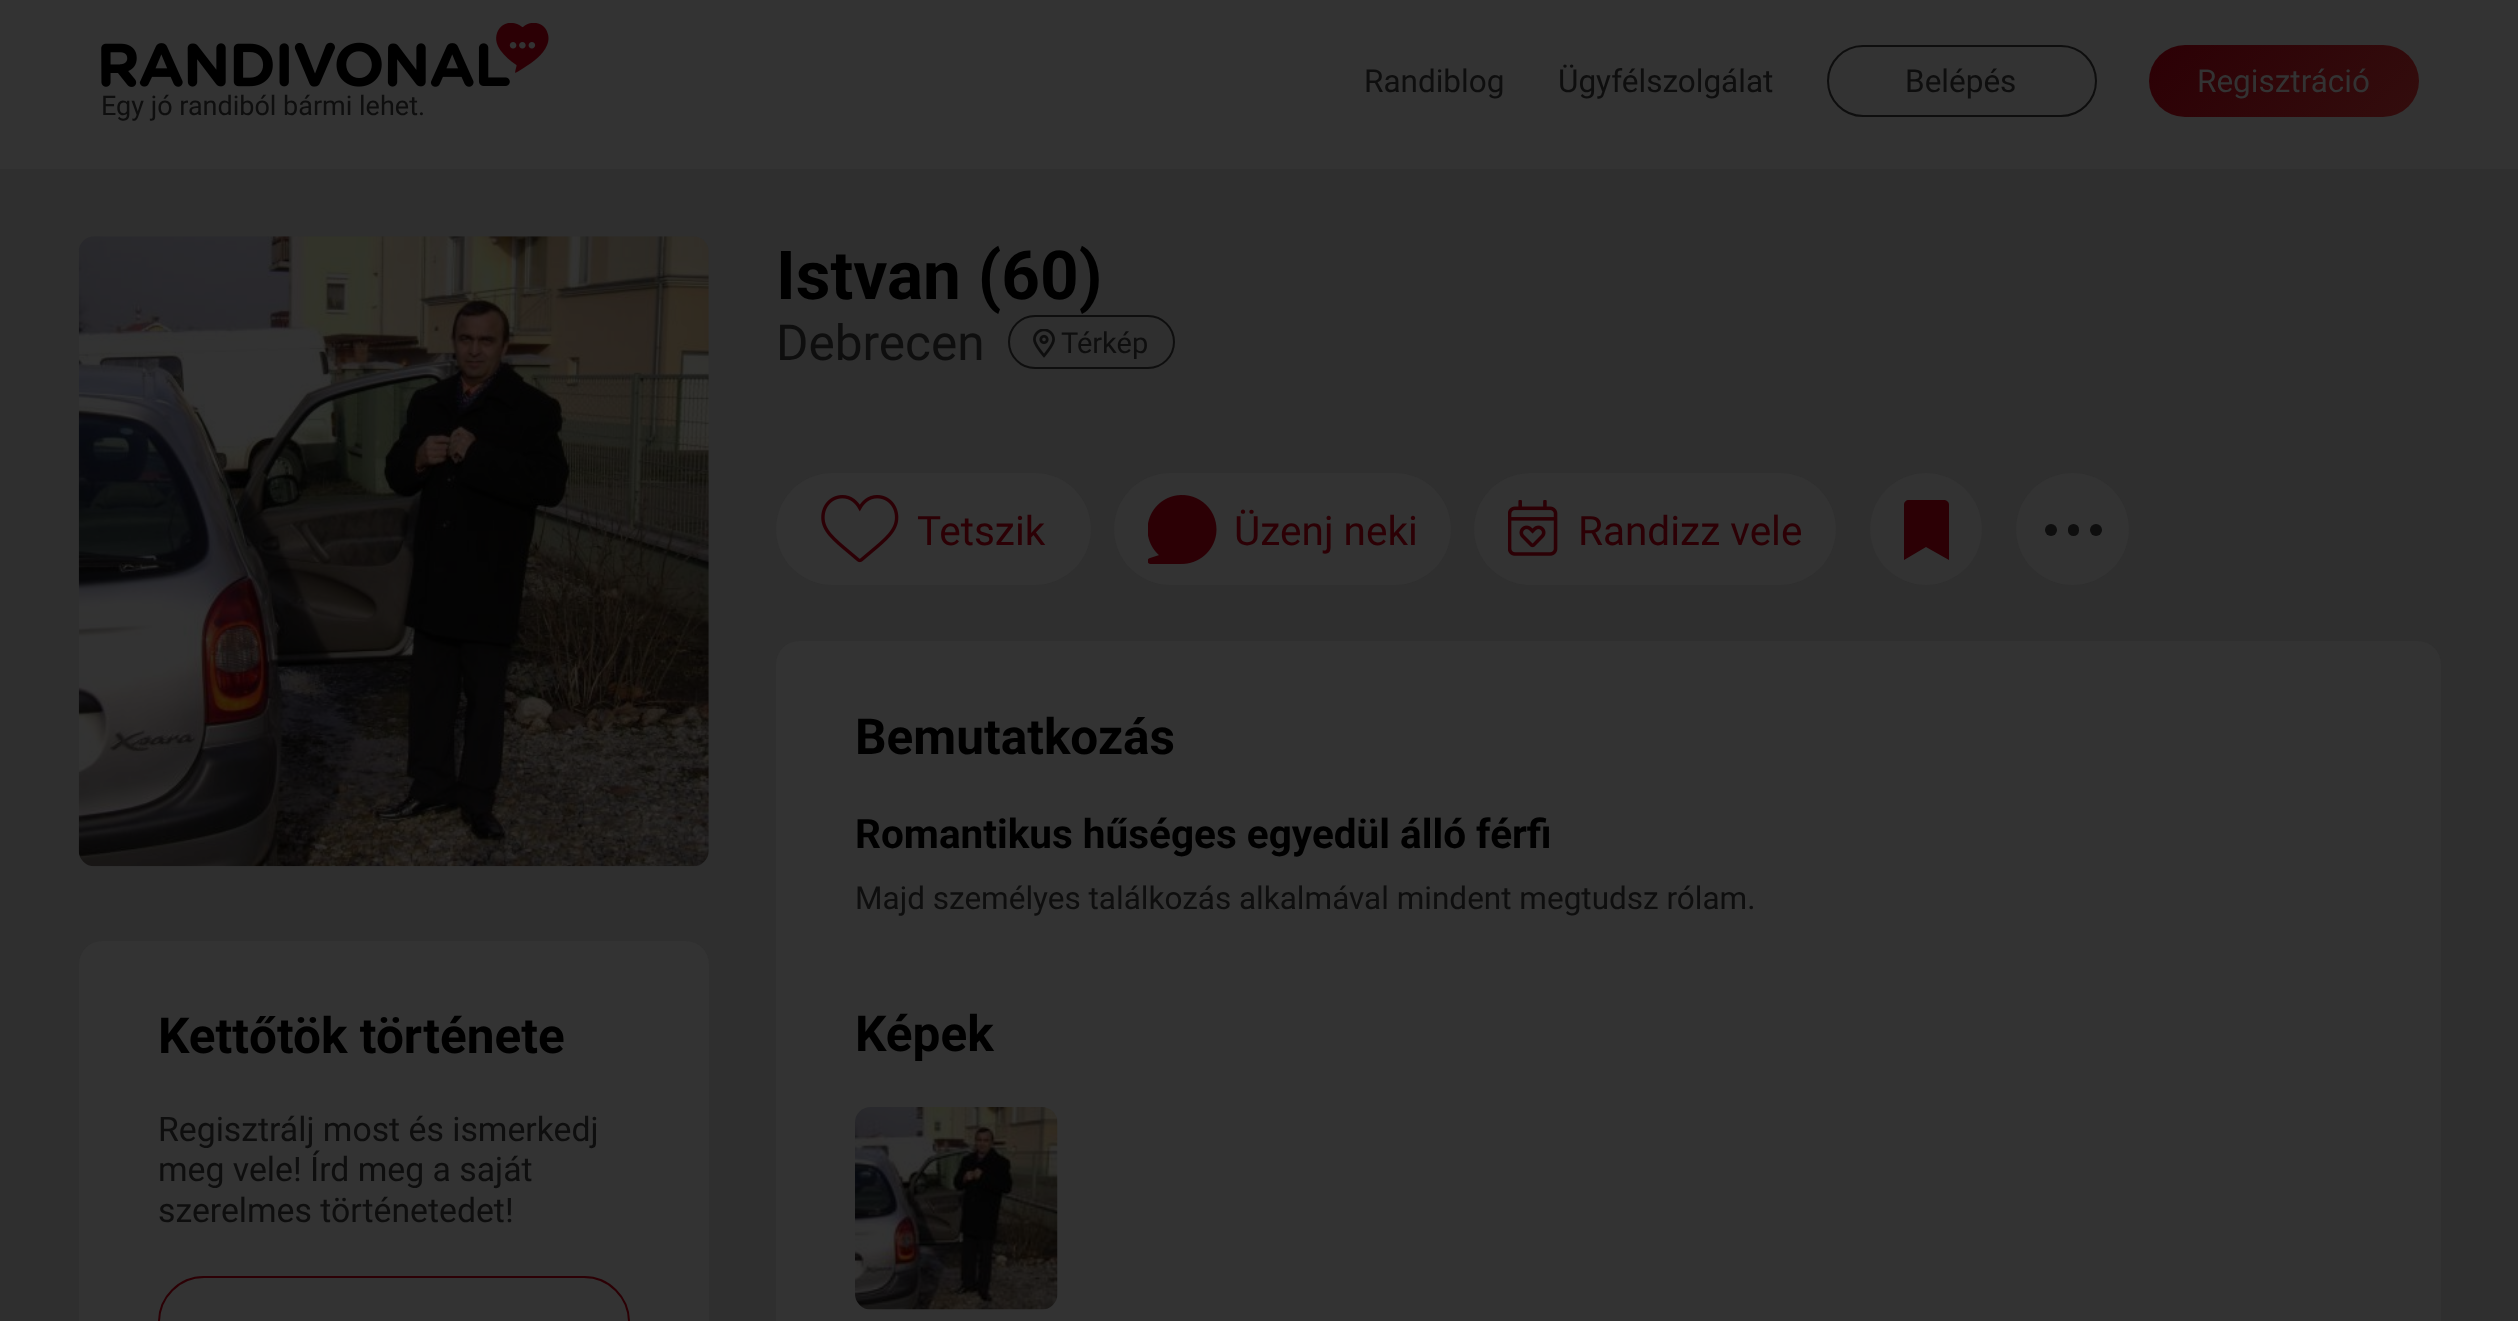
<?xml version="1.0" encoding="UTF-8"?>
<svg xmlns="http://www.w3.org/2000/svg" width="2518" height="1321">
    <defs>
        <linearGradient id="g1" gradientUnits="userSpaceOnUse" x1="2198" y1="-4.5" x2="2369" y2="167"><stop offset="0" stop-color="#2C0005"/><stop offset="1" stop-color="#330D0D"/></linearGradient>
    </defs>
    <rect width="100%" height="100%" fill="#2F2F2F"/>
    <rect x="0" y="0" width="2518" height="169" fill="#333333"/>
    <text x="1364" y="92" font-family="Roboto" font-size="31.5" fill="#0E0E0E">Randiblog</text>
    <text x="1558" y="92" font-family="Roboto" font-size="31.5" fill="#0E0E0E">Ügyfélszolgálat</text>
    <rect x="1828" y="46" width="268" height="70" rx="35" fill="none" stroke="#0E0E0E" stroke-width="2"/>
    <text x="1905" y="92" font-family="Roboto" font-size="31.5" fill="#0E0E0E">Belépés</text>
    <rect x="2149" y="45" width="270" height="72" rx="36" fill="url(#g1)"/>
    <text x="2197" y="92" font-family="Roboto" font-size="31.5" fill="#333333">Regisztráció</text>
    <image x="101" y="23" width="448" height="64" href="img_01.png"/>
    <text x="101" y="115" font-family="Roboto" font-size="27" fill="#0E0E0E">Egy jó randiból bármi lehet.</text>
    <text x="776" y="299" font-family="Roboto" font-size="67.5" font-weight="700" fill="#000000">Istvan (60)</text>
    <text x="776" y="360" font-family="Roboto" font-size="49.5" fill="#0E0E0E">Debrecen</text>
    <rect x="1009" y="316" width="165" height="52" rx="26" fill="none" stroke="#0E0E0E" stroke-width="2"/>
    <image x="1033" y="329" width="22" height="29" href="img_02.png"/>
    <text x="1061" y="353" font-family="Roboto" font-size="29" fill="#0E0E0E">Térkép</text>
    <rect x="776" y="473" width="315" height="112" rx="56" fill="#333333"/>
    <image x="821" y="495" width="78" height="68" href="img_03.png"/>
    <text x="917" y="545" font-family="Roboto" font-size="40.5" fill="#2C0005">Tetszik</text>
    <rect x="1114" y="473" width="337" height="112" rx="56" fill="#333333"/>
    <image x="1148" y="495" width="69" height="69" href="img_04.png"/>
    <text x="1234" y="545" font-family="Roboto" font-size="40.5" fill="#2C0005">Üzenj neki</text>
    <rect x="1474" y="473" width="362" height="112" rx="56" fill="#333333"/>
    <image x="1508" y="500" width="50" height="56" href="img_05.png"/>
    <text x="1578" y="545" font-family="Roboto" font-size="40.5" fill="#2C0005">Randizz vele</text>
    <circle cx="1926" cy="529" r="56" fill="#333333"/>
    <path d="M 1904 560 L 1926 547 L 1949 560 V 505 C 1949 502 1947 500 1943 500 H 1909 C 1906 500 1904 502 1904 505 Z" fill="#2C0005"/>
    <rect x="2016" y="473" width="113" height="112" rx="56" fill="#333333"/>
    <circle cx="2051" cy="530" r="6" fill="#0E0E0E"/>
    <rect x="2068" y="524" width="11" height="12" rx="5.5" fill="#0E0E0E"/>
    <circle cx="2096" cy="530" r="6" fill="#0E0E0E"/>
    <rect x="776" y="641" width="1665" height="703" rx="23" fill="#333333"/>
    <text x="855" y="754" font-family="Roboto" font-size="49.5" font-weight="700" fill="#000000">Bemutatkozás</text>
    <text x="855" y="848" font-family="Roboto" font-size="40.5" font-weight="700" fill="#000000">Romantikus hűséges egyedül álló férfi</text>
    <text x="855" y="909" font-family="Roboto" font-size="31.5" fill="#0E0E0E">Majd személyes találkozás alkalmával mindent megtudsz rólam.</text>
    <text x="855" y="1051" font-family="Roboto" font-size="49.5" font-weight="700" fill="#000000">Képek</text>
    <image x="855" y="1107" width="203" height="203" href="img_06.png"/>
    <image x="78" y="236" width="631" height="631" href="img_07.png"/>
    <rect x="79" y="941" width="630" height="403" rx="23" fill="#333333"/>
    <text x="158" y="1053" font-family="Roboto" font-size="49.5" font-weight="700" fill="#000000">Kettőtök története</text>
    <text font-family="Roboto" font-size="33.75" fill="#0E0E0E">
        <tspan x="158" y="1141">Regisztrálj most és ismerkedj</tspan>
        <tspan x="158" y="1181">meg vele! Írd meg a saját</tspan>
        <tspan x="158" y="1222">szerelmes történetedet!</tspan>
    </text>
    <rect x="159" y="1277" width="470" height="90" rx="45" fill="none" stroke="#2C0005" stroke-width="2"/>
</svg>
